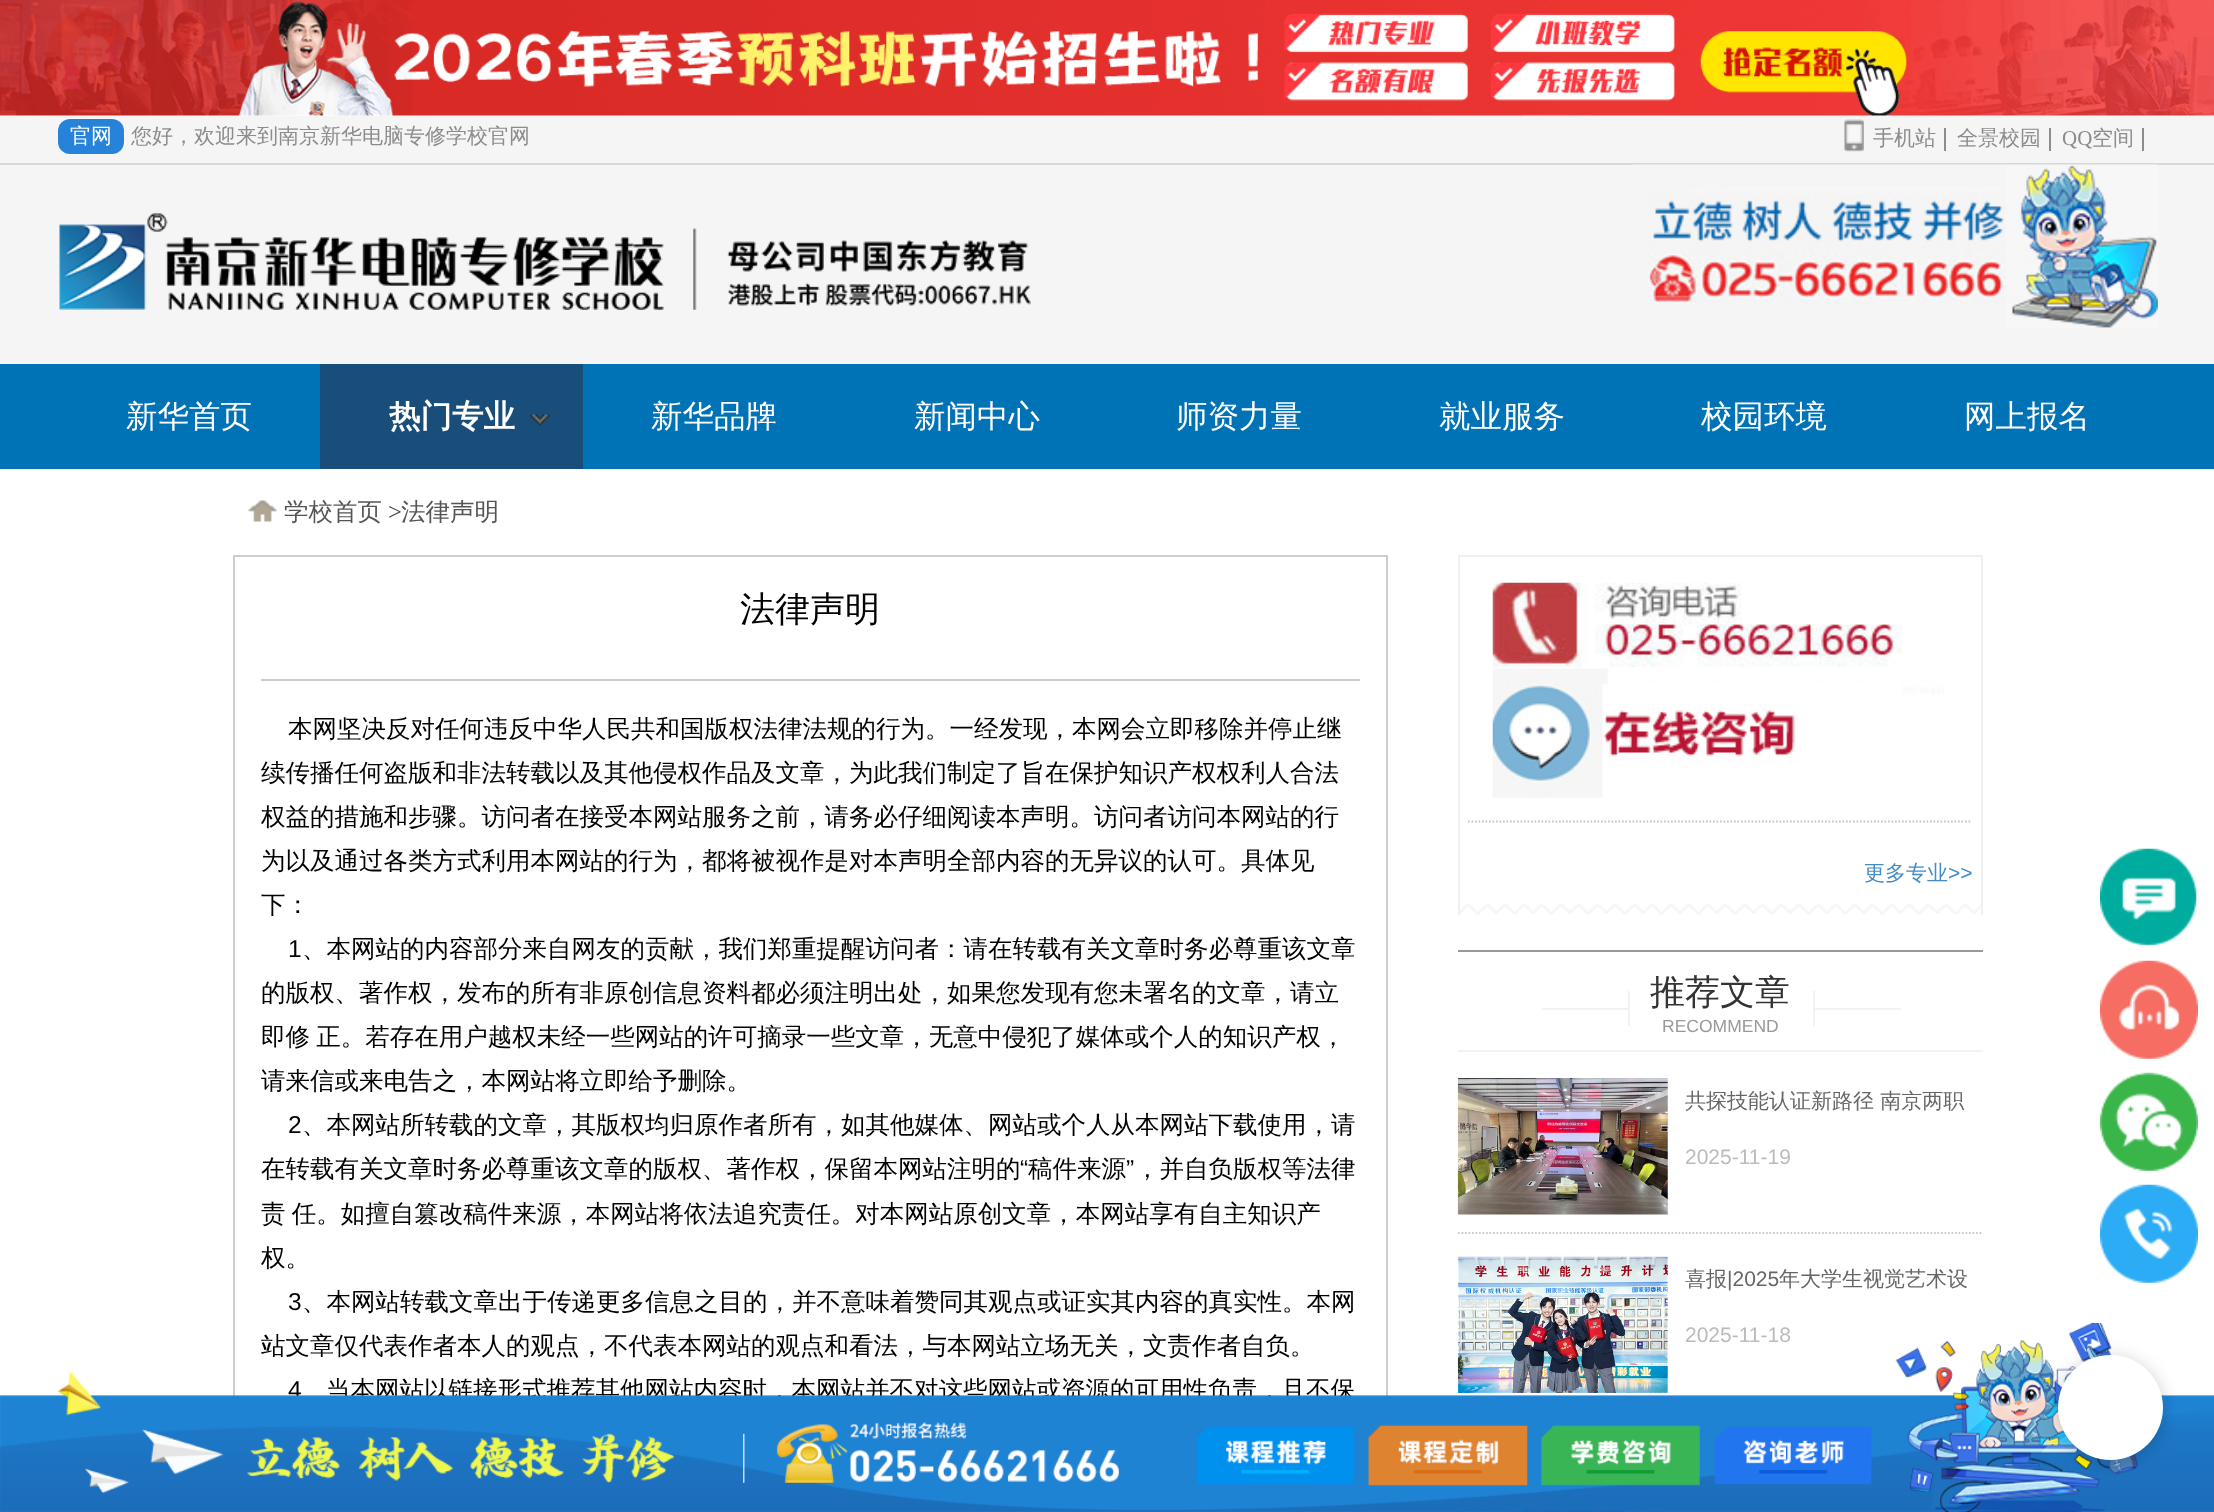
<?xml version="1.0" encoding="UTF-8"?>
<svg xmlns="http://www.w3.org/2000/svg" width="2214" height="1512">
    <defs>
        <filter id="blur1" x="-50%" y="-200%" width="200%" height="500%"><feGaussianBlur stdDeviation="9"/></filter>
    </defs>
    <rect width="100%" height="100%" fill="#FFFFFF"/>
    <image x="0" y="0" width="2214" height="116" href="img_01.png"/>
    <rect x="0" y="116" width="2214" height="47" fill="#F5F5F5"/>
    <rect x="58" y="119" width="66" height="35" rx="12" fill="#2783DA"/>
    <text x="70" y="143" font-family="WenQuanYi Zen Hei" font-size="21" font-weight="500" fill="#FFFFFF">官网</text>
    <text x="131" y="143" font-family="WenQuanYi Zen Hei" font-size="21" font-weight="500" fill="#8C8C8C">您好，欢迎来到南京新华电脑专修学校官网</text>
    <image x="1844" y="119" width="20" height="33" href="img_02.png"/>
    <text x="1873" y="145" font-family="WenQuanYi Zen Hei" font-size="21" font-weight="500" fill="#8C8C8C">手机站</text>
    <rect x="1944" y="128" width="2" height="23" fill="#8C8C8C"/>
    <text x="1957" y="145" font-family="WenQuanYi Zen Hei" font-size="21" font-weight="500" fill="#8C8C8C">全景校园</text>
    <rect x="2049" y="128" width="2" height="23" fill="#8C8C8C"/>
    <text x="2062" y="145" font-family="Liberation Serif" font-size="21" fill="#8C8C8C">QQ</text>
    <text x="2092" y="145" font-family="WenQuanYi Zen Hei" font-size="21" font-weight="500" fill="#8C8C8C">空间</text>
    <rect x="2142" y="128" width="2" height="23" fill="#8C8C8C"/>
    <rect x="0" y="163" width="2214" height="2" fill="#D7D7D7"/>
    <rect x="0" y="165" width="2214" height="199" fill="#F5F5F5"/>
    <image x="59" y="213" width="972" height="97" href="img_03.png"/>
    <image x="1632" y="164" width="526" height="164" href="img_04.png"/>
    <rect x="0" y="364" width="2214" height="105" fill="#0072B6"/>
    <text x="126" y="427" font-family="WenQuanYi Zen Hei" font-size="31.5" font-weight="500" fill="#FFFFFF">新华首页</text>
    <rect x="320" y="364" width="263" height="105" fill="#194D7A"/>
    <text x="389" y="427" font-family="WenQuanYi Zen Hei" font-size="31.5" font-weight="700" fill="#FFFFFF">热门专业</text>
    <image x="529" y="414" width="21" height="12" href="img_05.png"/>
    <text x="651" y="427" font-family="WenQuanYi Zen Hei" font-size="31.5" font-weight="500" fill="#FFFFFF">新华品牌</text>
    <text x="914" y="427" font-family="WenQuanYi Zen Hei" font-size="31.5" font-weight="500" fill="#FFFFFF">新闻中心</text>
    <text x="1176" y="427" font-family="WenQuanYi Zen Hei" font-size="31.5" font-weight="500" fill="#FFFFFF">师资力量</text>
    <text x="1439" y="427" font-family="WenQuanYi Zen Hei" font-size="31.5" font-weight="500" fill="#FFFFFF">就业服务</text>
    <text x="1701" y="427" font-family="WenQuanYi Zen Hei" font-size="31.5" font-weight="500" fill="#FFFFFF">校园环境</text>
    <text x="1964" y="427" font-family="WenQuanYi Zen Hei" font-size="31.5" font-weight="500" fill="#FFFFFF">网上报名</text>
    <image x="248" y="500" width="29" height="22" href="img_06.png"/>
    <text x="284" y="520" font-family="WenQuanYi Zen Hei" font-size="24.5" font-weight="500" fill="#555555">学校首页</text>
    <text x="388" y="520" font-family="Liberation Serif" font-size="24.5" fill="#444444">&gt;</text>
    <text x="401" y="520" font-family="WenQuanYi Zen Hei" font-size="24.5" font-weight="500" fill="#555555">法律声明</text>
    <rect x="234" y="556" width="1153" height="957" fill="none" stroke="#CDCDCD" stroke-width="2"/>
    <rect x="261" y="679" width="1099" height="2" fill="#CDCDCD"/>
    <text x="740" y="621" font-family="WenQuanYi Zen Hei" font-size="35" font-weight="500" fill="#000000">法律声明</text>
    <text x="288" y="737" font-family="WenQuanYi Zen Hei" font-size="24.5" font-weight="500" fill="#000000">本网坚决反对任何违反中华人民共和国版权法律法规的行为。一经发现，本网会立即移除并停止继</text>
    <text font-family="WenQuanYi Zen Hei" font-size="24.5" font-weight="500" fill="#000000">
        <tspan x="261" y="781">续传播任何盗版和非法转载以及其他侵权作品及文章，为此我们制定了旨在保护知识产权权利人合法</tspan>
        <tspan x="261" y="825">权益的措施和步骤。访问者在接受本网站服务之前，请务必仔细阅读本声明。访问者访问本网站的行</tspan>
        <tspan x="261" y="869">为以及通过各类方式利用本网站的行为，都将被视作是对本声明全部内容的无异议的认可。具体见</tspan>
        <tspan x="261" y="913">下：</tspan>
    </text>
    <text x="288" y="957" font-family="Liberation Sans" font-size="24.5" fill="#000000">1</text>
    <text x="302" y="957" font-family="WenQuanYi Zen Hei" font-size="24.5" font-weight="500" fill="#000000">、本网站的内容部分来自网友的贡献，我们郑重提醒访问者：请在转载有关文章时务必尊重该文章</text>
    <text font-family="WenQuanYi Zen Hei" font-size="24.5" font-weight="500" fill="#000000">
        <tspan x="261" y="1001">的版权、著作权，发布的所有非原创信息资料都必须注明出处，如果您发现有您未署名的文章，请立</tspan>
        <tspan x="261" y="1045" word-spacing="-1">即修 正。若存在用户越权未经一些网站的许可摘录一些文章，无意中侵犯了媒体或个人的知识产权，</tspan>
        <tspan x="261" y="1089">请来信或来电告之，本网站将立即给予删除。</tspan>
    </text>
    <text x="288" y="1133" font-family="Liberation Sans" font-size="24.5" fill="#000000">2</text>
    <text x="302" y="1133" font-family="WenQuanYi Zen Hei" font-size="24.5" font-weight="500" fill="#000000">、本网站所转载的文章，其版权均归原作者所有，如其他媒体、网站或个人从本网站下载使用，请</text>
    <text x="261" y="1177" font-family="WenQuanYi Zen Hei" font-size="24.5" font-weight="500" fill="#000000">在转载有关文章时务必尊重该文章的版权、著作权，保留本网站注明的</text>
    <text x="1020" y="1177" font-family="Liberation Sans" font-size="24.5" fill="#000000">“</text>
    <text x="1028" y="1177" font-family="WenQuanYi Zen Hei" font-size="24.5" font-weight="500" fill="#000000">稿件来源</text>
    <text x="1126" y="1177" font-family="Liberation Sans" font-size="24.5" fill="#000000">”</text>
    <text x="1135" y="1177" font-family="WenQuanYi Zen Hei" font-size="24.5" font-weight="500" fill="#000000">，并自负版权等法律</text>
    <text font-family="WenQuanYi Zen Hei" font-size="24.5" font-weight="500" fill="#000000">
        <tspan x="261" y="1222" word-spacing="-1">责 任。如擅自篡改稿件来源，本网站将依法追究责任。对本网站原创文章，本网站享有自主知识产</tspan>
        <tspan x="261" y="1266">权。</tspan>
    </text>
    <text x="288" y="1310" font-family="Liberation Sans" font-size="24.5" fill="#000000">3</text>
    <text x="302" y="1310" font-family="WenQuanYi Zen Hei" font-size="24.5" font-weight="500" fill="#000000">、本网站转载文章出于传递更多信息之目的，并不意味着赞同其观点或证实其内容的真实性。本网</text>
    <text x="261" y="1354" font-family="WenQuanYi Zen Hei" font-size="24.5" font-weight="500" fill="#000000">站文章仅代表作者本人的观点，不代表本网站的观点和看法，与本网站立场无关，文责作者自负。</text>
    <text x="288" y="1398" font-family="Liberation Sans" font-size="24.5" fill="#000000">4</text>
    <text x="326" y="1398" font-family="WenQuanYi Zen Hei" font-size="24.5" font-weight="500" fill="#000000">当本网站以链接形式推荐其他网站内容时，本网站并不对这些网站或资源的可用性负责，且不保</text>
    <image x="1460" y="904" width="521" height="11" href="img_07.png"/>
    <rect x="1458" y="555" width="525" height="2" fill="#F0F0F0"/>
    <rect x="1981" y="555" width="2" height="360" fill="#F0F0F0"/>
    <rect x="1458" y="555" width="2" height="360" fill="#F0F0F0"/>
    <image x="1492" y="582" width="452" height="216" href="img_08.png"/>
    <path d="M 1468 821.5 H 1972" fill="none" stroke="#C6C6C6" stroke-width="1.8" stroke-dasharray="1.75 1.75"/>
    <text x="1864" y="880" font-family="WenQuanYi Zen Hei" font-size="21" font-weight="500" fill="#438CC6">更多专业</text>
    <text x="1948" y="880" font-family="Liberation Sans" font-size="21" fill="#438CC6">&gt;&gt;</text>
    <rect x="1458" y="950" width="525" height="2" fill="#999999"/>
    <rect x="1458" y="1050" width="525" height="2" fill="#F2F2F2"/>
    <rect x="1813" y="991" width="2" height="35" fill="#F2F2F2"/>
    <rect x="1628" y="991" width="2" height="35" fill="#F2F2F2"/>
    <text x="1650" y="1004" font-family="WenQuanYi Zen Hei" font-size="35" font-weight="500" fill="#333333">推荐文章</text>
    <rect x="1542" y="1008" width="87" height="2" fill="#F2F2F2"/>
    <rect x="1813" y="1008" width="88" height="2" fill="#F2F2F2"/>
    <text x="1662" y="1032" font-family="Liberation Sans" font-size="17.5" fill="#999999">RECOMMEND</text>
    <image x="1457" y="1078" width="211" height="137" href="img_09.png"/>
    <text x="1685" y="1108" font-family="WenQuanYi Zen Hei" font-size="21" font-weight="500" fill="#666666">共探技能认证新路径 南京两职</text>
    <text x="1685" y="1164" font-family="Liberation Sans" font-size="21" fill="#BBBBBB">2025-11-19</text>
    <path d="M 1458 1233 H 1983" fill="none" stroke="#CCCCCC" stroke-width="1.8" stroke-dasharray="1.75 1.75"/>
    <image x="1457" y="1256" width="211" height="137" href="img_10.png"/>
    <text x="1685" y="1286" font-family="WenQuanYi Zen Hei" font-size="21" font-weight="500" fill="#666666">喜报</text>
    <text x="1727" y="1286" font-family="Liberation Sans" font-size="21" fill="#666666">|2025</text>
    <text x="1779" y="1286" font-family="WenQuanYi Zen Hei" font-size="21" font-weight="500" fill="#666666">年大学生视觉艺术设</text>
    <text x="1685" y="1342" font-family="Liberation Sans" font-size="21" fill="#BBBBBB">2025-11-18</text>
    <image x="1457" y="1510" width="211" height="2" href="img_11.png"/>
    <image x="2100" y="848" width="97" height="98" href="img_12.png"/>
    <image x="2100" y="960" width="98" height="99" href="img_13.png"/>
    <image x="2100" y="1072" width="98" height="99" href="img_14.png"/>
    <image x="2100" y="1184" width="98" height="99" href="img_15.png"/>
    <image x="0" y="1323" width="2214" height="189" href="img_16.png"/>
    <rect x="2058" y="1358" width="105" height="105" rx="52.5" fill="#000000" fill-opacity="0.2" filter="url(#blur1)"/>
    <circle cx="2110.5" cy="1407.5" r="52.5" fill="#FFFFFF"/>
</svg>
